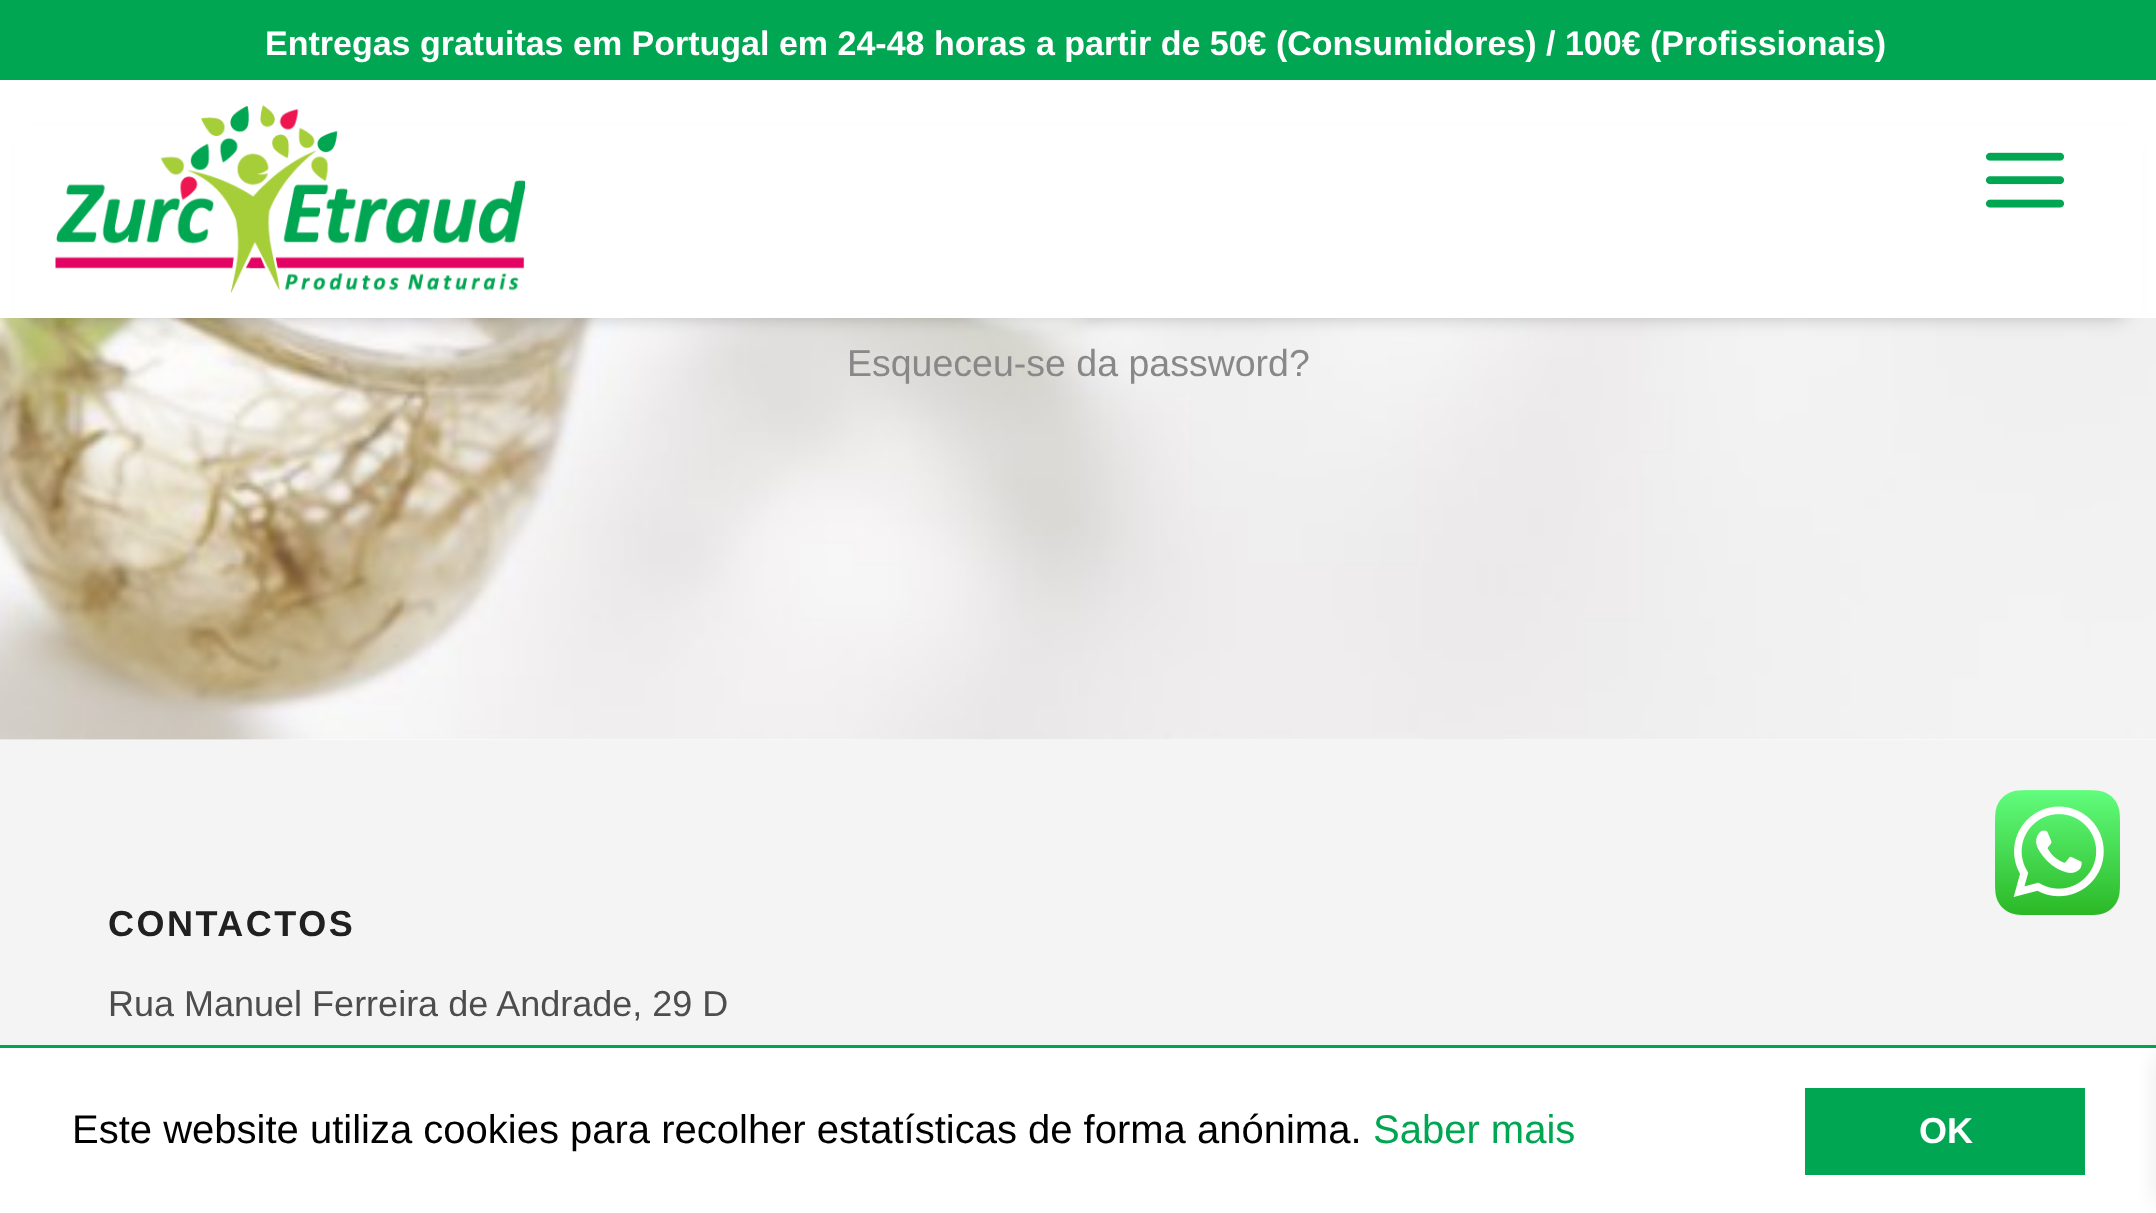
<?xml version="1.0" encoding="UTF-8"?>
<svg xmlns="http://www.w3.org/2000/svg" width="2156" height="1213">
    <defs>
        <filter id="blur1" x="-50%" y="-200%" width="200%" height="500%"><feGaussianBlur stdDeviation="10"/></filter>
        <filter id="blur2" x="-50%" y="-200%" width="200%" height="500%"><feGaussianBlur stdDeviation="12.5"/></filter>
    </defs>
    <rect width="100%" height="100%" fill="#FFFFFF"/>
    <rect x="0" y="0" width="2156" height="80" fill="#00A651"/>
    <text x="265" y="55" font-family="Liberation Sans" font-size="34" font-weight="700" fill="#FFFFFF">Entregas gratuitas em Portugal em 24-48 horas a partir de 50€ (Consumidores) / 100€ (Profissionais)</text>
    <image x="0" y="318" width="2156" height="422" href="img_03.png"/>
    <rect x="33" y="143" width="2092" height="172" fill="#000000" fill-opacity="0.3" filter="url(#blur1)"/>
    <rect x="15" y="125" width="2128" height="193" fill="#FFFFFF"/>
    <image x="55" y="105" width="470" height="188" href="img_01.png"/>
    <image x="1985" y="152" width="80" height="56" href="img_02.png"/>
    <text x="847" y="376" font-family="Liberation Sans" font-size="37.5" fill="#888888">Esqueceu-se da password?</text>
    <rect x="0" y="740" width="2156" height="305" fill="#F4F4F4"/>
    <text x="108" y="936" font-family="Liberation Sans" font-size="36" font-weight="700" letter-spacing="2.5" fill="#202020">CONTACTOS</text>
    <text x="108" y="1016" font-family="Liberation Sans" font-size="36" fill="#4D4D4D">Rua Manuel Ferreira de Andrade, 29 D</text>
    <image x="1995" y="790" width="125" height="125" href="img_04.png"/>
    <rect x="0" y="1045" width="2156" height="3" fill="#00A651"/>
    <text x="72" y="1143" font-family="Liberation Sans" font-size="40" fill="#000000">Este website utiliza cookies para recolher estatísticas de forma anónima.</text>
    <text x="1373" y="1143" font-family="Liberation Sans" font-size="40" fill="#00A651">Saber mais</text>
    <rect x="1805" y="1088" width="280" height="87" fill="#00A651"/>
    <text x="1919" y="1143" font-family="Liberation Sans" font-size="36" font-weight="700" fill="#FFFFFF">OK</text>
    <rect x="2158" y="1055" width="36" height="148" fill="#000000" fill-opacity="0.1" filter="url(#blur2)"/>
</svg>
